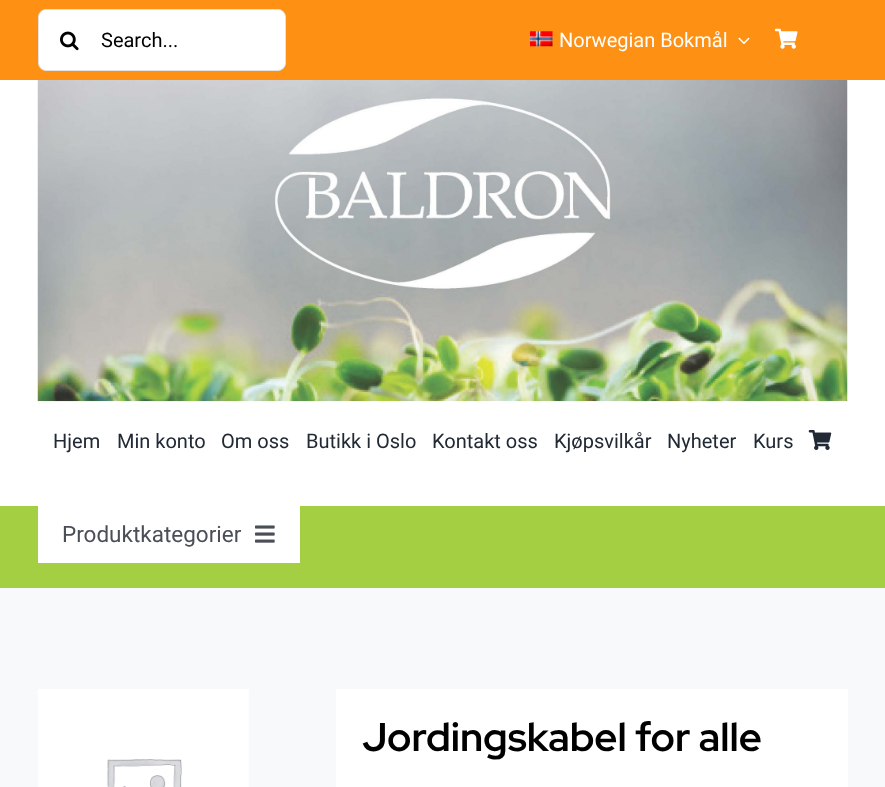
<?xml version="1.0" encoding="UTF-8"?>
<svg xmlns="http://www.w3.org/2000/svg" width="885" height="787">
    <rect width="100%" height="100%" fill="#FFFFFF"/>
    <rect x="0" y="0" width="885" height="80" fill="#FE9014"/>
    <rect x="38.5" y="9.5" width="247" height="61" rx="7.5" fill="#FFFFFF" stroke="#E2E2E2"/>
    <image x="60" y="31" width="19" height="20" href="img_01.png"/>
    <text x="101" y="47" font-family="Roboto" font-size="20" fill="#000000">Search...</text>
    <image x="530" y="31" width="23" height="16" href="img_02.png"/>
    <text x="559" y="47" font-family="Roboto" font-size="20" fill="#FFFFFF">Norwegian Bokmål</text>
    <image x="738" y="37" width="12" height="8" href="img_03.png"/>
    <image x="775" y="28" width="23" height="21" href="img_04.png"/>
    <image x="37" y="80" width="811" height="322" href="img_05.png"/>
    <text x="53" y="448" font-family="Roboto" font-size="20" fill="#212934">Hjem</text>
    <text x="117" y="448" font-family="Roboto" font-size="20" fill="#212934">Min konto</text>
    <text x="221" y="448" font-family="Roboto" font-size="20" fill="#212934">Om oss</text>
    <text x="306" y="448" font-family="Roboto" font-size="20" fill="#212934">Butikk i Oslo</text>
    <text x="432" y="448" font-family="Roboto" font-size="20" fill="#212934">Kontakt oss</text>
    <text x="554" y="448" font-family="Roboto" font-size="20" fill="#212934">Kjøpsvilkår</text>
    <text x="667" y="448" font-family="Roboto" font-size="20" fill="#212934">Nyheter</text>
    <text x="753" y="448" font-family="Roboto" font-size="20" fill="#212934">Kurs</text>
    <image x="808" y="430" width="24" height="20" href="img_06.png"/>
    <rect x="0" y="506" width="885" height="82" fill="#A5CF42"/>
    <rect x="38" y="506" width="262" height="57" fill="#FFFFFF"/>
    <text x="62" y="542" font-family="Roboto" font-size="22.5" fill="#4A4E57">Produktkategorier</text>
    <image x="255" y="525" width="20" height="18" href="img_07.png"/>
    <rect x="0" y="588" width="885" height="199" fill="#F8F9FA"/>
    <image x="38" y="689" width="211" height="98" href="img_08.png"/>
    <rect x="336" y="689" width="512" height="98" fill="#FFFFFF"/>
    <text x="362" y="751" font-family="Red Hat Display" font-size="40" font-weight="700" fill="#000000">Jordingskabel for alle</text>
</svg>
